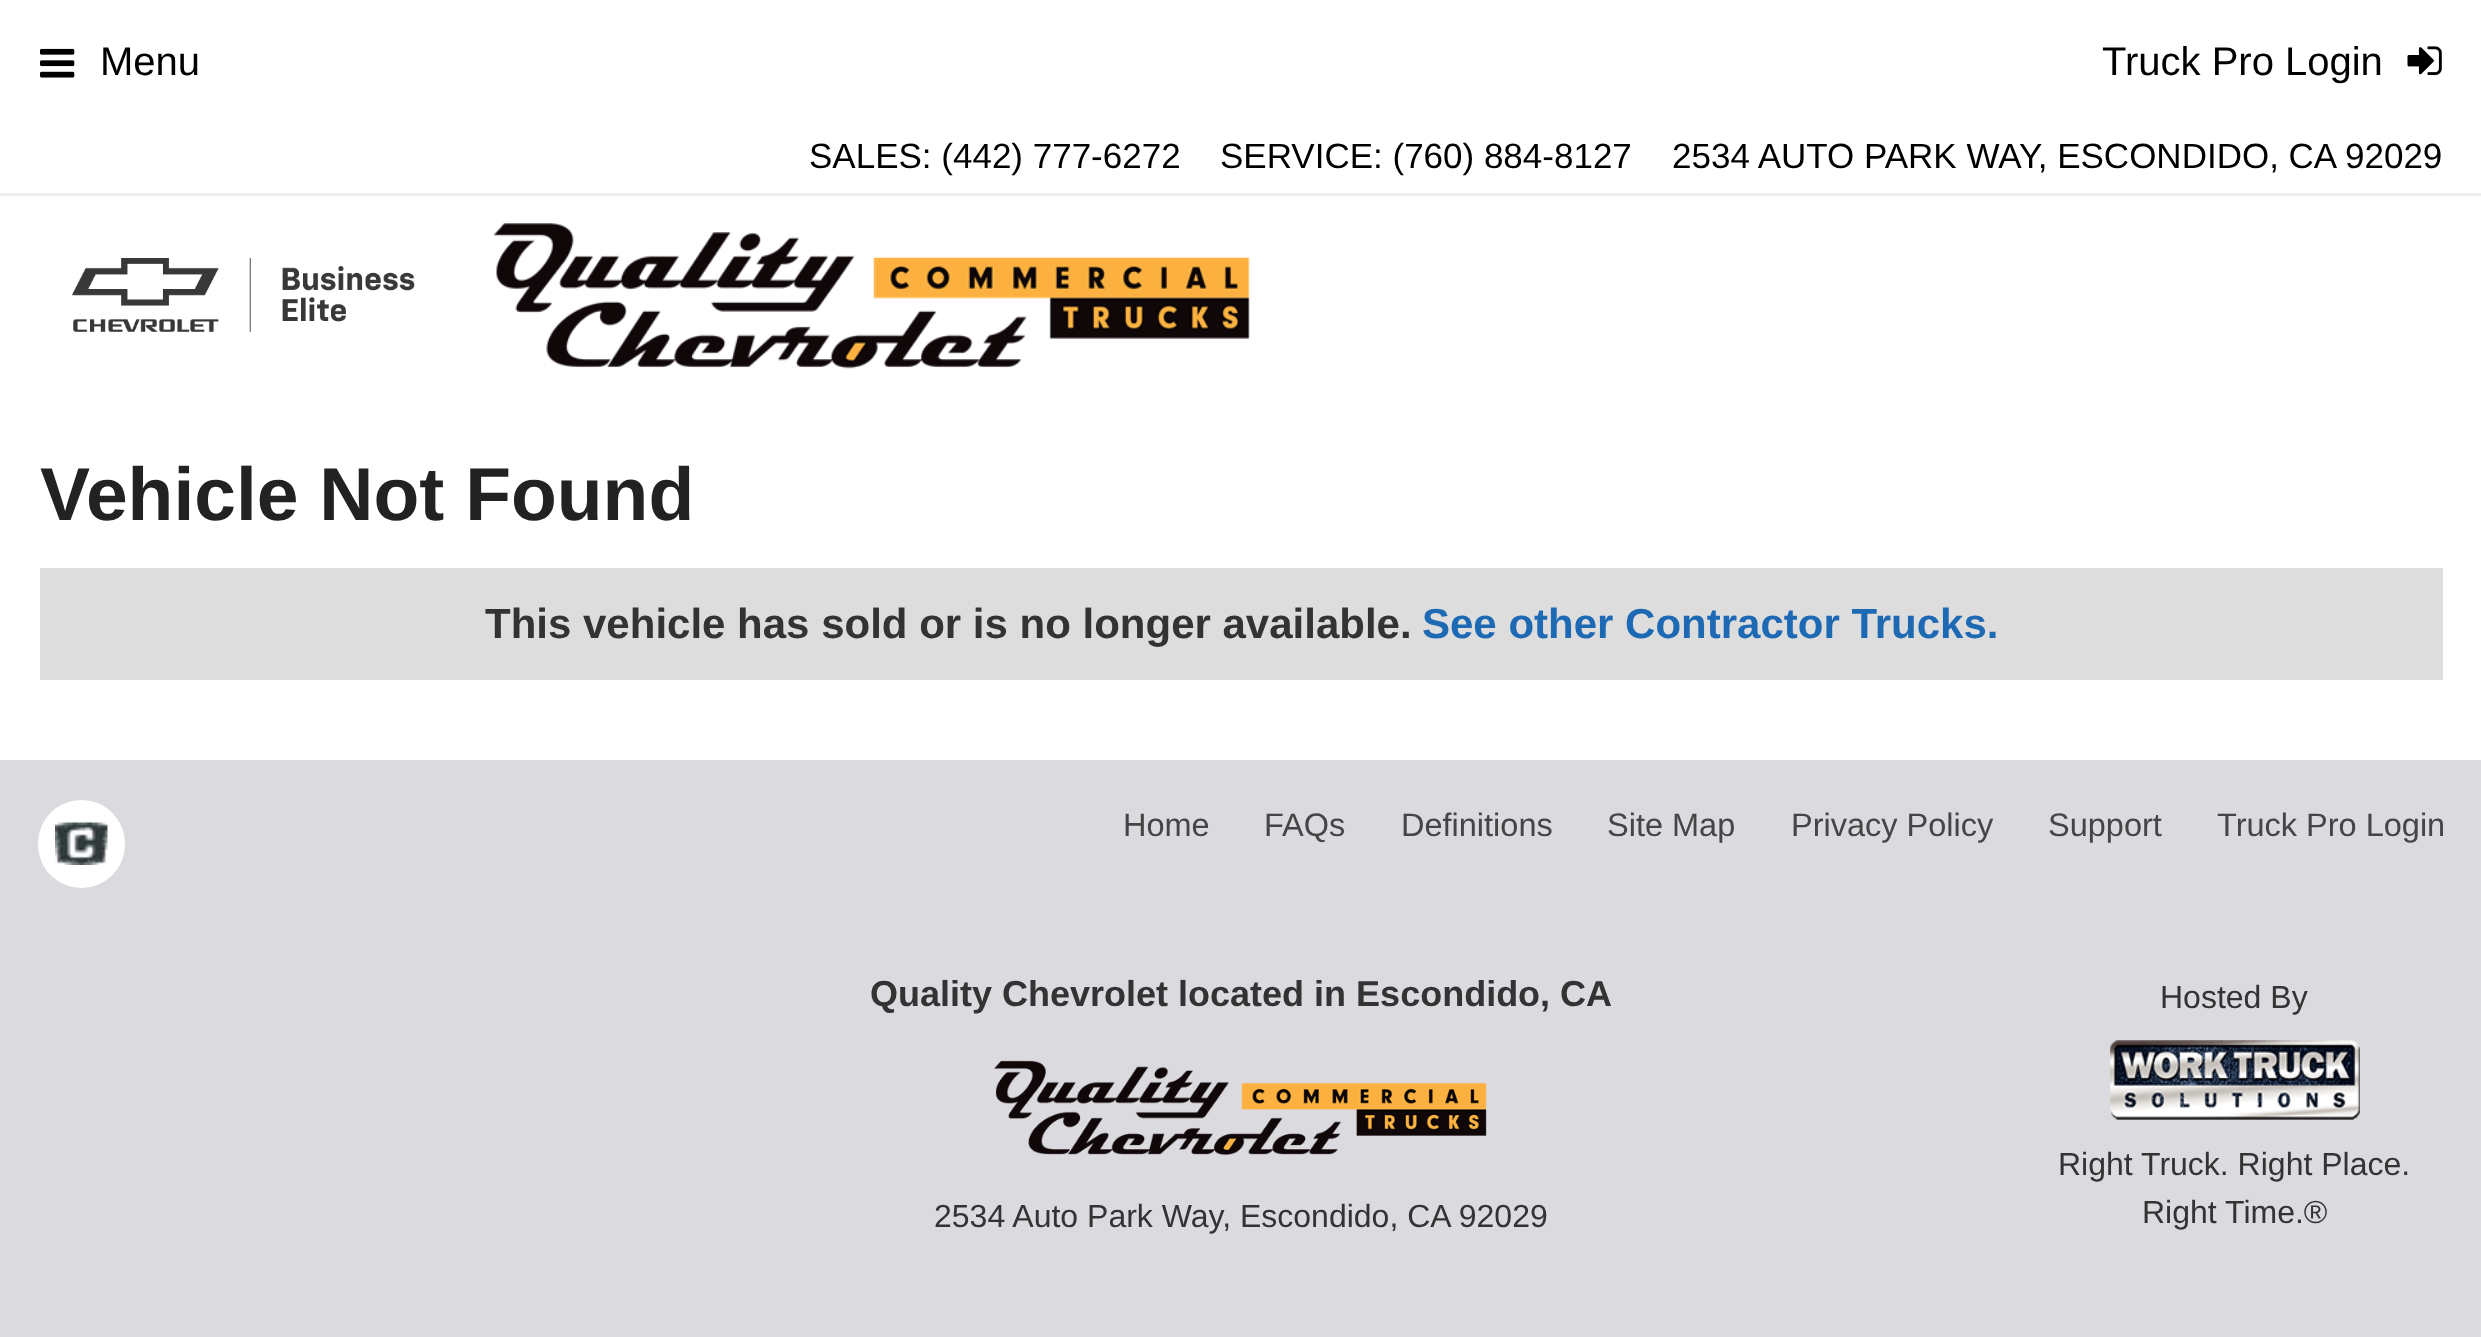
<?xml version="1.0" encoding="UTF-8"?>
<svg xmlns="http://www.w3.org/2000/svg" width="2481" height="1337">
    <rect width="100%" height="100%" fill="#FFFFFF"/>
    <image x="40" y="48" width="35" height="30" href="img_01.png"/>
    <text x="100" y="75" font-family="Liberation Sans" font-size="40" fill="#000000">Menu</text>
    <text x="2102" y="75" font-family="Liberation Sans" font-size="40" fill="#000000">Truck Pro Login</text>
    <image x="2407" y="46" width="35" height="29" href="img_02.png"/>
    <rect x="0" y="193" width="2481" height="3" fill="#EEEEEE"/>
    <text x="809" y="168" font-family="Liberation Sans" font-size="35" fill="#000000">SALES: (442) 777-6272</text>
    <text x="1220" y="168" font-family="Liberation Sans" font-size="35" fill="#000000">SERVICE: (760) 884-8127</text>
    <text x="1672" y="168" font-family="Liberation Sans" font-size="35" fill="#000000">2534 AUTO PARK WAY, ESCONDIDO, CA 92029</text>
    <image x="72" y="258" width="343" height="74" href="img_03.png"/>
    <image x="493" y="223" width="757" height="146" href="img_04.png"/>
    <text x="40" y="520" font-family="Liberation Sans" font-size="75" font-weight="700" fill="#222222">Vehicle Not Found</text>
    <rect x="40" y="568" width="2403" height="112" fill="#DDDDDD"/>
    <text x="485" y="638" font-family="Liberation Sans" font-size="42" font-weight="700" fill="#333333">This vehicle has sold or is no longer available.</text>
    <text x="1422" y="638" font-family="Liberation Sans" font-size="42" font-weight="700" fill="#1D69B4">See other Contractor Trucks.</text>
    <rect x="0" y="760" width="2481" height="577" fill="#DADADF"/>
    <rect x="38" y="800" width="87" height="88" rx="43.5" fill="#FFFFFF"/>
    <image x="55" y="822" width="53" height="43" href="img_05.png"/>
    <text x="1123" y="836" font-family="Liberation Sans" font-size="32.5" fill="#454545">Home</text>
    <text x="1264" y="836" font-family="Liberation Sans" font-size="32.5" fill="#454545">FAQs</text>
    <text x="1401" y="836" font-family="Liberation Sans" font-size="32.5" fill="#454545">Definitions</text>
    <text x="1607" y="836" font-family="Liberation Sans" font-size="32.5" fill="#454545">Site Map</text>
    <text x="1791" y="836" font-family="Liberation Sans" font-size="32.5" fill="#454545">Privacy Policy</text>
    <text x="2048" y="836" font-family="Liberation Sans" font-size="32.5" fill="#454545">Support</text>
    <text x="2217" y="836" font-family="Liberation Sans" font-size="32.5" fill="#454545">Truck Pro Login</text>
    <text x="870" y="1006" font-family="Liberation Sans" font-size="36" font-weight="700" fill="#333333">Quality Chevrolet located in Escondido, CA</text>
    <image x="994" y="1060" width="493" height="95" href="img_06.png"/>
    <text x="934" y="1227" font-family="Liberation Sans" font-size="32" fill="#333333">2534 Auto Park Way, Escondido, CA 92029</text>
    <text x="2160" y="1008" font-family="Liberation Sans" font-size="32" fill="#333333">Hosted By</text>
    <image x="2110" y="1040" width="250" height="80" href="img_07.png"/>
    <text x="2058" y="1175" font-family="Liberation Sans" font-size="32" fill="#333333">Right Truck. Right Place.</text>
    <text x="2142" y="1223" font-family="Liberation Sans" font-size="32" fill="#333333">Right Time.®</text>
</svg>
